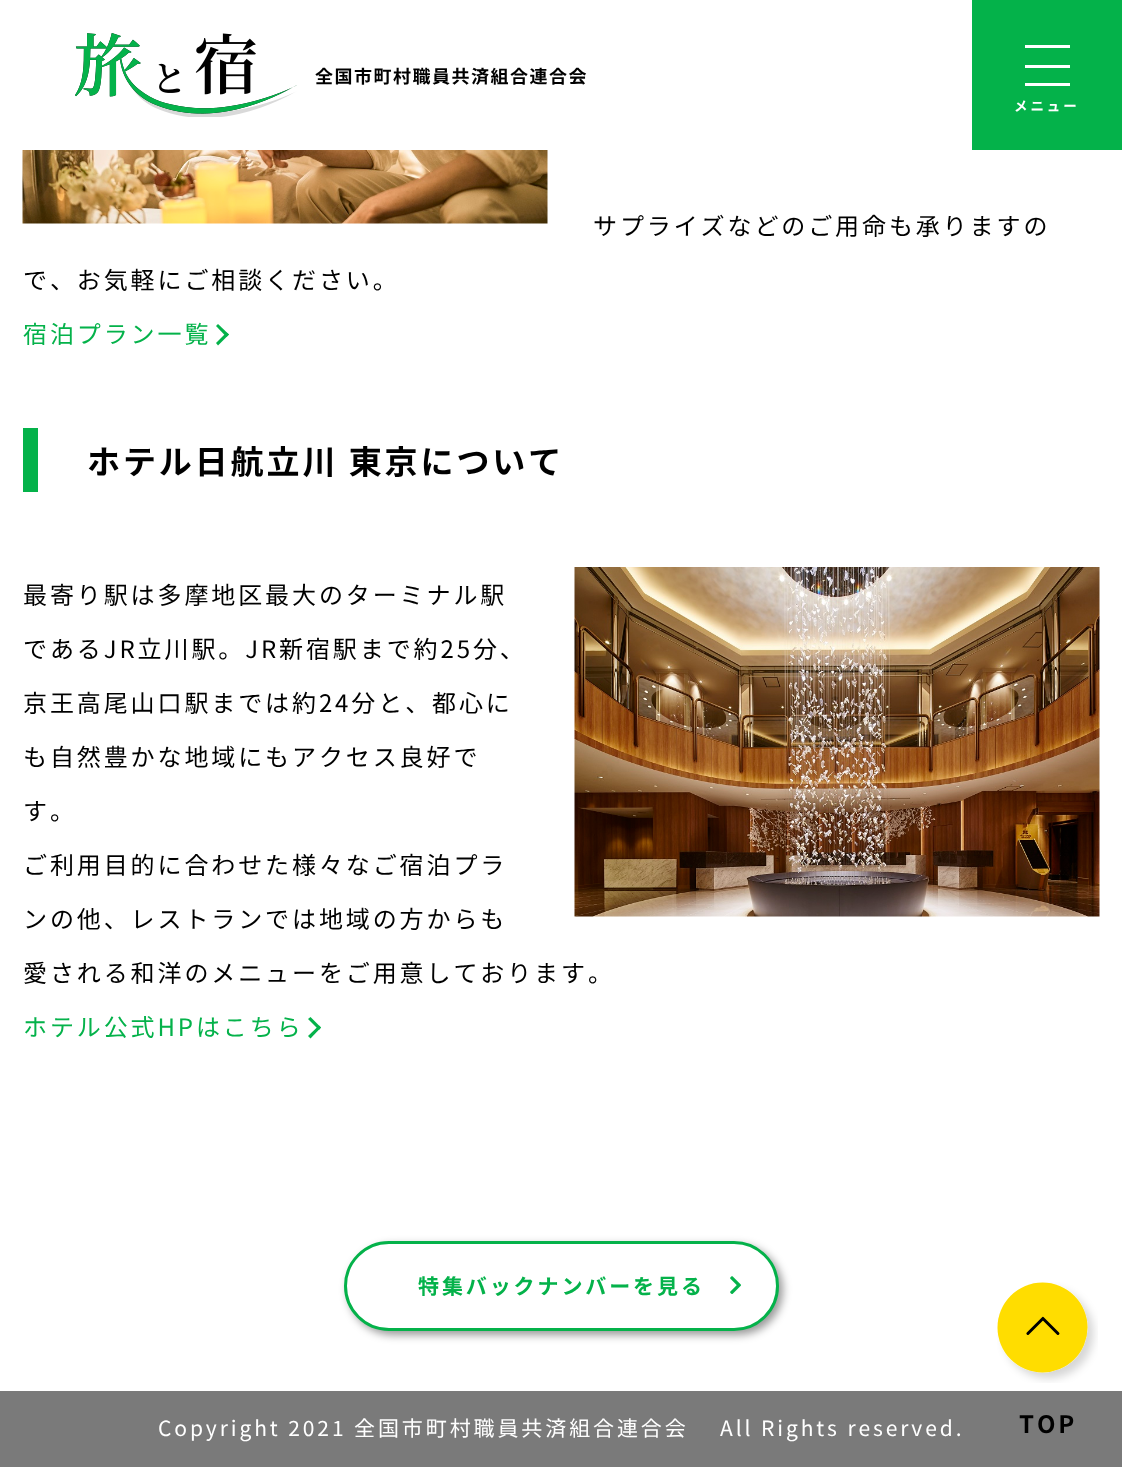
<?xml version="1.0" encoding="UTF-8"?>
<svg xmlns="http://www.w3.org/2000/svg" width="1122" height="1467">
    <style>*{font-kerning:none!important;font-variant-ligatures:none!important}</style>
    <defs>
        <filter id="blur1" x="-50%" y="-200%" width="200%" height="500%"><feGaussianBlur stdDeviation="4.5"/></filter>
    </defs>
    <rect width="100%" height="100%" fill="#FFFFFF"/>
    <image x="75" y="33" width="222" height="84" href="img_01.png"/>
    <text x="315" y="83" font-family="Noto Sans JP" font-size="18" font-weight="700" letter-spacing="1.5" fill="#000000">全国市町村職員共済組合連合会</text>
    <rect x="0" y="1391" width="1122" height="76" fill="#7A7A7A"/>
    <rect x="972" y="0" width="150" height="150" fill="#04B24A"/>
    <rect x="1025" y="45" width="45" height="3" fill="#FFFFFF"/>
    <rect x="1025" y="65" width="45" height="3" fill="#FFFFFF"/>
    <rect x="1025" y="83" width="45" height="3" fill="#FFFFFF"/>
    <text x="1014" y="111" font-family="Noto Sans JP" font-size="13.5" font-weight="700" letter-spacing="2.9" fill="#FFFFFF">メニュー</text>
    <text x="158" y="1436" font-family="Noto Sans JP" font-size="21" letter-spacing="2.9" fill="#FFFFFF">Copyright 2021 全国市町村職員共済組合連合会</text>
    <text x="720" y="1436" font-family="Noto Sans JP" font-size="21" letter-spacing="2.9" fill="#FFFFFF">All Rights reserved.</text>
    <image x="22" y="150" width="526" height="74" href="img_02.png"/>
    <text x="593" y="235" font-family="Noto Sans JP" font-size="24" letter-spacing="2.9" fill="#000000">サプライズなどのご用命も承りますの</text>
    <text x="23" y="289" font-family="Noto Sans JP" font-size="24" letter-spacing="2.9" fill="#000000">で、お気軽にご相談ください。</text>
    <text x="23" y="343" font-family="Noto Sans JP" font-size="24" letter-spacing="2.9" fill="#04B24A">宿泊プラン一覧</text>
    <path d="M 216 326 L 218 324 L 229 334.5 L 226.5 337 Z" fill="#04B24A"/>
    <path d="M 216 343 L 226.5 332.5 L 229 334.5 L 218 345.5 Z" fill="#04B24A"/>
    <rect x="23" y="428" width="15" height="64" fill="#04B24A"/>
    <text x="87" y="474" font-family="Noto Sans JP" font-size="33" font-weight="700" letter-spacing="2.9" fill="#000000">ホテル日航立川 東京について</text>
    <text x="23" y="604" font-family="Noto Sans JP" font-size="24" letter-spacing="2.9" fill="#000000">最寄り駅は多摩地区最大のターミナル駅</text>
    <text x="23" y="658" font-family="Noto Sans JP" font-size="24" letter-spacing="2.9" fill="#000000">であるJR立川駅。JR新宿駅まで約25分、</text>
    <text x="23" y="712" font-family="Noto Sans JP" font-size="24" letter-spacing="2.9" fill="#000000">京王高尾山口駅までは約24分と、都心に</text>
    <text x="23" y="766" font-family="Noto Sans JP" font-size="24" letter-spacing="2.9" fill="#000000">も自然豊かな地域にもアクセス良好で</text>
    <text x="23" y="820" font-family="Noto Sans JP" font-size="24" letter-spacing="2.9" fill="#000000">す。</text>
    <text x="23" y="874" font-family="Noto Sans JP" font-size="24" letter-spacing="2.9" fill="#000000">ご利用目的に合わせた様々なご宿泊プラ</text>
    <text x="23" y="928" font-family="Noto Sans JP" font-size="24" letter-spacing="2.9" fill="#000000">ンの他、レストランでは地域の方からも</text>
    <text x="23" y="982" font-family="Noto Sans JP" font-size="24" letter-spacing="2.9" fill="#000000">愛される和洋のメニューをご用意しております。</text>
    <text x="23" y="1036" font-family="Noto Sans JP" font-size="24" letter-spacing="2.9" fill="#04B24A">ホテル公式HPはこちら</text>
    <path d="M 308 1019 L 310.5 1017 L 321 1027.5 L 319 1030 Z" fill="#04B24A"/>
    <path d="M 308 1036 L 319 1025.5 L 321 1027.5 L 310.5 1038.5 Z" fill="#04B24A"/>
    <image x="574" y="567" width="526" height="350" href="img_03.png"/>
    <rect x="348" y="1245" width="435" height="90" rx="45" fill="#000000" fill-opacity="0.4" filter="url(#blur1)"/>
    <rect x="345.5" y="1242.5" width="432" height="87" rx="43.5" fill="#FFFFFF" stroke="#04B24A" stroke-width="3"/>
    <text x="418" y="1294" font-family="Noto Sans JP" font-size="21" font-weight="700" letter-spacing="2.9" fill="#04B24A">特集バックナンバーを見る</text>
    <image x="730" y="1276" width="11" height="18" href="img_04.png"/>
    <image x="997" y="1282" width="101" height="101" href="img_05.png"/>
    <text x="1019" y="1433" font-family="Noto Sans JP" font-size="24" font-weight="700" letter-spacing="2.9" fill="#000000">TOP</text>
</svg>
